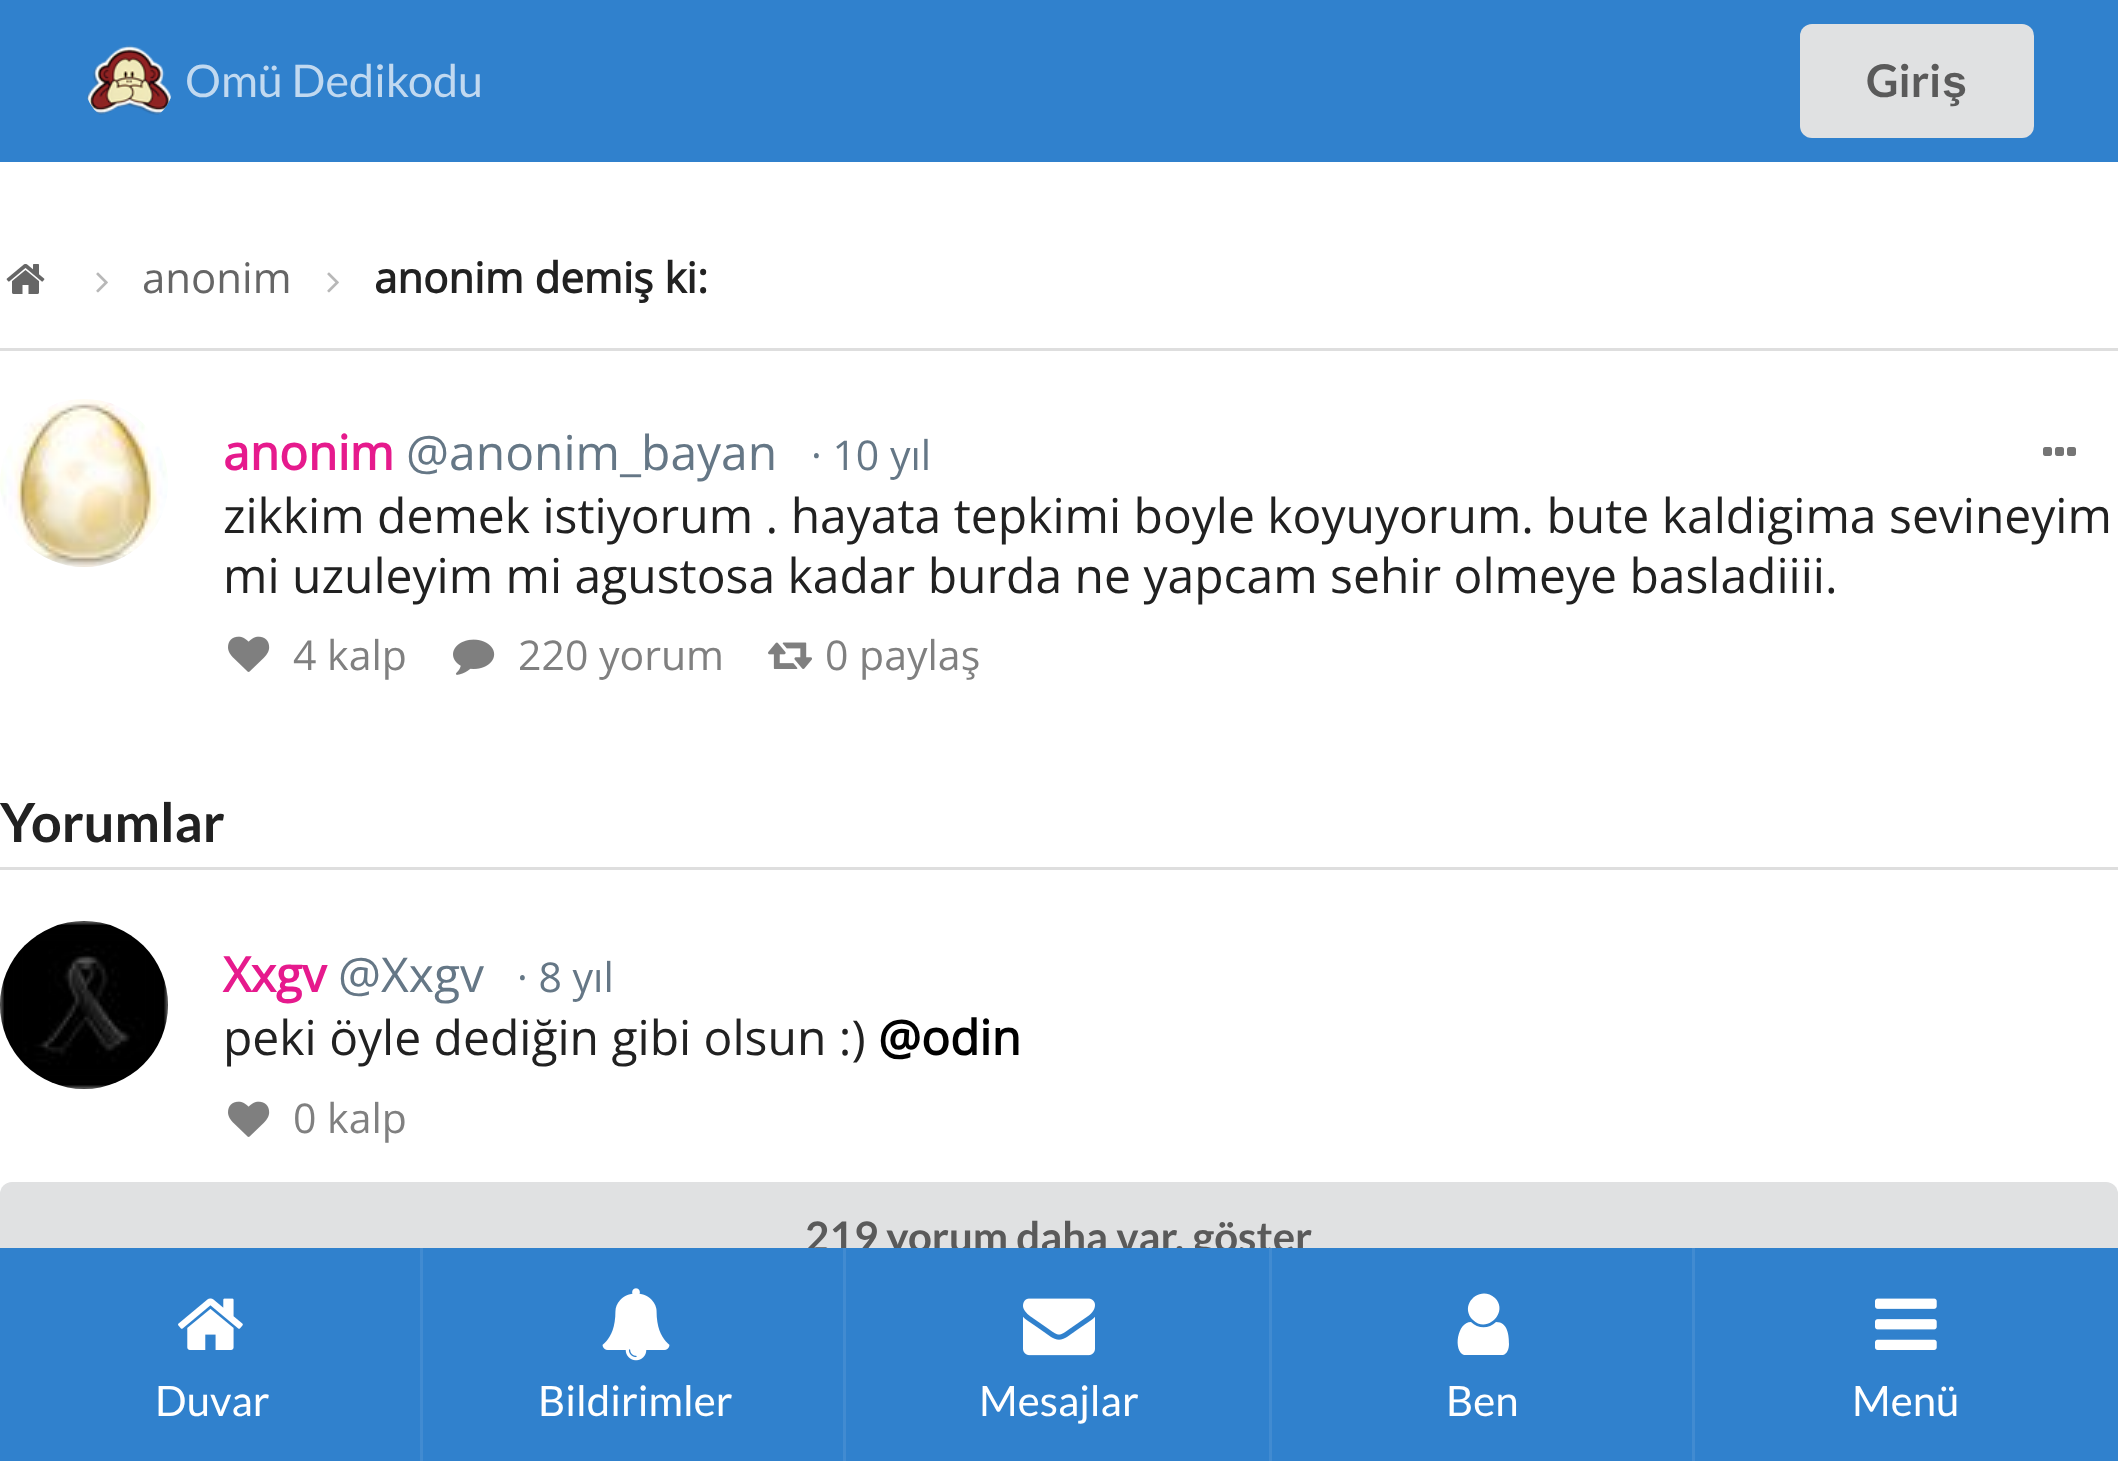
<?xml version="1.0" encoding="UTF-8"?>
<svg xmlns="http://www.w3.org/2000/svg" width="2118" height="1461">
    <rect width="100%" height="100%" fill="#3081CD"/>
    <image x="87" y="45" width="85" height="70" href="img_01.png"/>
    <text x="185" y="97" font-family="Lato" font-size="45" fill="#C1D9F0">Omü Dedikodu</text>
    <rect x="1800" y="24" width="234" height="114" rx="12" fill="#E0E1E2"/>
    <text x="1866" y="97" font-family="Lato" font-size="45" font-weight="700" fill="#5A5A5A">Giri</text>
    <text x="1942" y="97" font-family="Liberation Sans" font-size="45" font-weight="700" fill="#5A5A5A">ş</text>
    <rect x="0" y="162" width="2118" height="1032" fill="#FFFFFF"/>
    <rect x="0" y="348" width="2118" height="3" fill="#DEDEDE"/>
    <image x="6" y="264" width="39" height="30" href="img_02.png"/>
    <image x="96" y="272" width="12" height="21" href="img_03.png"/>
    <text x="142" y="293" font-family="Open Sans" font-size="42" fill="#666666">anonim</text>
    <image x="327" y="272" width="12" height="21" href="img_03.png"/>
    <text x="374" y="293" font-family="Open Sans" font-size="42" font-weight="700" fill="#212121">anonim demiş ki:</text>
    <image x="0" y="399" width="168" height="168" href="img_04.png"/>
    <text x="223" y="470" font-family="Open Sans" font-size="48" font-weight="700" fill="#E61A8D">anonim</text>
    <text x="406" y="470" font-family="Open Sans" font-size="48" fill="#657786">@anonim_bayan</text>
    <text x="811" y="470" font-family="Open Sans" font-size="41" fill="#657786">· 10 yıl</text>
    <text font-family="Open Sans" font-size="48" fill="#212121">
        <tspan x="223" y="533">zikkim demek istiyorum . hayata tepkimi boyle koyuyorum. bute kaldigima sevineyim</tspan>
        <tspan x="223" y="593">mi uzuleyim mi agustosa kadar burda ne yapcam sehir olmeye basladiiii.</tspan>
    </text>
    <image x="228" y="636" width="42" height="36" href="img_05.png"/>
    <text x="293" y="670" font-family="Open Sans" font-size="41" fill="#808080">4 kalp</text>
    <image x="453" y="639" width="42" height="36" href="img_06.png"/>
    <text x="518" y="670" font-family="Open Sans" font-size="41" fill="#808080">220 yorum</text>
    <image x="768" y="642" width="44" height="27" href="img_07.png"/>
    <text x="825" y="670" font-family="Open Sans" font-size="41" fill="#808080">0 paylaş</text>
    <image x="2043" y="447" width="33" height="9" href="img_08.png"/>
    <rect x="0" y="867" width="2118" height="3" fill="#DEDEDE"/>
    <text x="0" y="842" font-family="Lato" font-size="54" font-weight="700" fill="#212121">Yorumlar</text>
    <image x="0" y="921" width="168" height="168" href="img_09.png"/>
    <text x="223" y="992" font-family="Open Sans" font-size="48" font-weight="700" fill="#E61A8D">Xxgv</text>
    <text x="338" y="992" font-family="Open Sans" font-size="48" fill="#657786">@Xxgv</text>
    <text x="517" y="992" font-family="Open Sans" font-size="41" fill="#657786">· 8 yıl</text>
    <text x="223" y="1055" font-family="Open Sans" font-size="48" fill="#212121">peki öyle dediğin gibi olsun :)</text>
    <text x="878" y="1055" font-family="Open Sans" font-size="48" font-weight="700" fill="#000000">@odin</text>
    <image x="228" y="1101" width="42" height="36" href="img_05.png"/>
    <text x="293" y="1133" font-family="Open Sans" font-size="41" fill="#808080">0 kalp</text>
    <rect x="0" y="1182" width="2118" height="108" rx="12" fill="#E0E1E2"/>
    <text x="805" y="1252" font-family="Lato" font-size="42" font-weight="700" fill="#5A5A5A">219 yorum daha var, göster</text>
    <rect x="0" y="1248" width="2118" height="42" fill="#3081CD"/>
    <image x="178" y="1298" width="65" height="52" href="img_10.png"/>
    <rect x="420" y="1248" width="3" height="213" fill="#418BD1"/>
    <text x="155" y="1416" font-family="Lato" font-size="42" fill="#FFFFFF">Duvar</text>
    <image x="602" y="1288" width="68" height="73" href="img_11.png"/>
    <rect x="843" y="1248" width="3" height="213" fill="#418BD1"/>
    <text x="538" y="1416" font-family="Lato" font-size="42" fill="#FFFFFF">Bildirimler</text>
    <image x="1023" y="1298" width="72" height="58" href="img_12.png"/>
    <rect x="1269" y="1248" width="3" height="213" fill="#418BD1"/>
    <text x="979" y="1416" font-family="Lato" font-size="42" fill="#FFFFFF">Mesajlar</text>
    <path d="M 1509 1344 C 1509 1349 1507 1354 1503 1355 H 1472 H 1464 C 1453 1351 1457 1322 1471 1322 C 1478 1329 1489 1329 1496 1322 C 1508 1322 1509 1336 1509 1344 Z M 1495 1298 C 1509 1312 1487 1334 1473 1320 C 1458 1305 1480 1284 1495 1298 Z" fill="#FFFFFF"/>
    <rect x="1692" y="1248" width="3" height="213" fill="#418BD1"/>
    <text x="1446" y="1416" font-family="Lato" font-size="42" fill="#FFFFFF">Ben</text>
    <image x="1875" y="1298" width="62" height="52" href="img_13.png"/>
    <text x="1852" y="1416" font-family="Lato" font-size="42" fill="#FFFFFF">Menü</text>
</svg>
